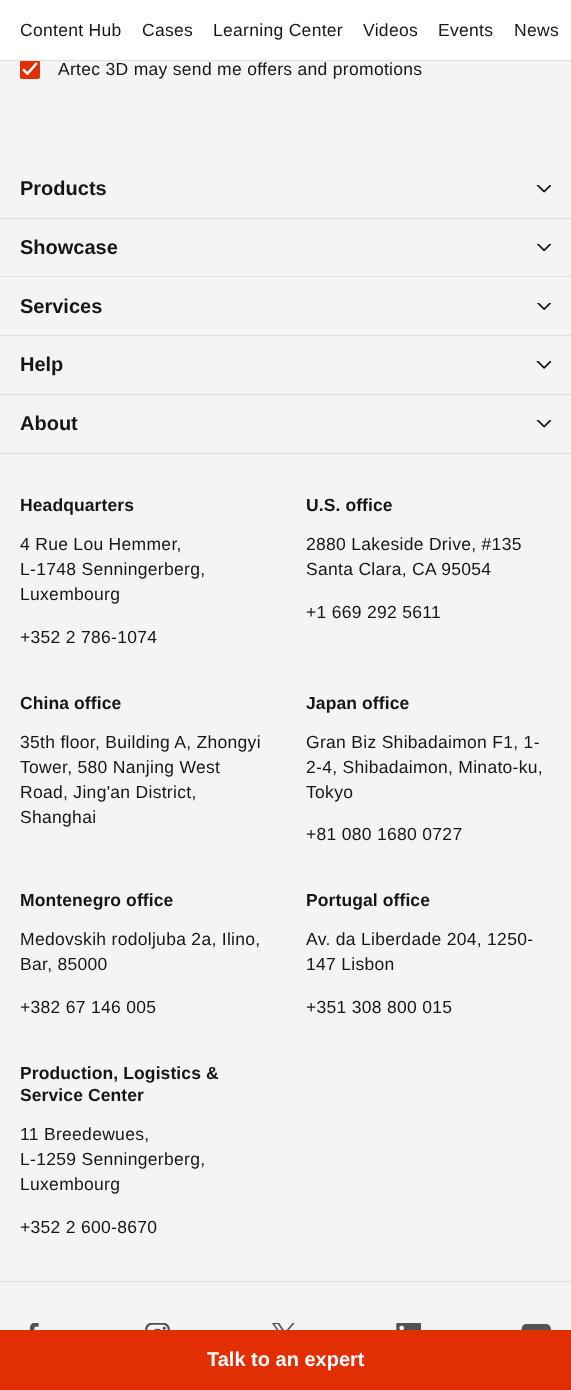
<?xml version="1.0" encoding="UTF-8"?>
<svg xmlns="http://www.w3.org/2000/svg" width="571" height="1390">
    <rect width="100%" height="100%" fill="#F4F4F4"/>
    <rect x="20" y="59" width="20" height="20" rx="2.5" fill="#E22E03"/>
    <image x="22" y="62" width="16" height="13" href="img_01.png"/>
    <rect x="20.5" y="59.5" width="19" height="19" rx="2" fill="none" stroke="#E22E03"/>
    <rect x="0" y="0" width="571" height="60" fill="#FFFFFF"/>
    <rect x="0" y="60" width="571" height="1" fill="#E0E0E0"/>
    <text x="20" y="36" font-family="Liberation Sans" font-size="17.5" letter-spacing="0.3" fill="#161616">Content Hub</text>
    <text x="142" y="36" font-family="Liberation Sans" font-size="17.5" letter-spacing="0.3" fill="#161616">Cases</text>
    <text x="213" y="36" font-family="Liberation Sans" font-size="17.5" letter-spacing="0.3" fill="#161616">Learning Center</text>
    <text x="363" y="36" font-family="Liberation Sans" font-size="17.5" letter-spacing="0.3" fill="#161616">Videos</text>
    <text x="438" y="36" font-family="Liberation Sans" font-size="17.5" letter-spacing="0.3" fill="#161616">Events</text>
    <text x="514" y="36" font-family="Liberation Sans" font-size="17.5" letter-spacing="0.3" fill="#161616">News</text>
    <text x="58" y="75" font-family="Liberation Sans" font-size="17.5" letter-spacing="0.3" fill="#161616">Artec 3D may send me offers and promotions</text>
    <text x="20" y="195" font-family="Liberation Sans" font-size="20" font-weight="700" fill="#161616">Products</text>
    <image x="536" y="185" width="15" height="8" href="img_02.png"/>
    <rect x="0" y="218" width="571" height="1" fill="#E0E0E0"/>
    <text x="20" y="254" font-family="Liberation Sans" font-size="20" font-weight="700" fill="#161616">Showcase</text>
    <image x="536" y="244" width="15" height="8" href="img_03.png"/>
    <rect x="0" y="276" width="571" height="1" fill="#E0E0E0"/>
    <text x="20" y="313" font-family="Liberation Sans" font-size="20" font-weight="700" fill="#161616">Services</text>
    <image x="536" y="303" width="15" height="7" href="img_04.png"/>
    <rect x="0" y="335" width="571" height="1" fill="#E0E0E0"/>
    <text x="20" y="371" font-family="Liberation Sans" font-size="20" font-weight="700" fill="#161616">Help</text>
    <image x="536" y="361" width="15" height="8" href="img_05.png"/>
    <rect x="0" y="394" width="571" height="1" fill="#E0E0E0"/>
    <text x="20" y="430" font-family="Liberation Sans" font-size="20" font-weight="700" fill="#161616">About</text>
    <image x="536" y="420" width="15" height="8" href="img_02.png"/>
    <rect x="0" y="453" width="571" height="1" fill="#E0E0E0"/>
    <text x="20" y="511" font-family="Liberation Sans" font-size="17.5" font-weight="700" letter-spacing="0.1" fill="#161616">Headquarters</text>
    <text font-family="Liberation Sans" font-size="17.5" letter-spacing="0.3" fill="#161616">
        <tspan x="20" y="550">4 Rue Lou Hemmer,</tspan>
        <tspan x="20" y="575">L-1748 Senningerberg,</tspan>
        <tspan x="20" y="600">Luxembourg</tspan>
    </text>
    <text x="20" y="643" font-family="Liberation Sans" font-size="17.5" letter-spacing="0.3" fill="#161616">+352 2 786-1074</text>
    <text x="306" y="511" font-family="Liberation Sans" font-size="17.5" font-weight="700" letter-spacing="0.1" fill="#161616">U.S. office</text>
    <text font-family="Liberation Sans" font-size="17.5" letter-spacing="0.3" fill="#161616">
        <tspan x="306" y="550">2880 Lakeside Drive, #135</tspan>
        <tspan x="306" y="575">Santa Clara, CA 95054</tspan>
    </text>
    <text x="306" y="618" font-family="Liberation Sans" font-size="17.5" letter-spacing="0.3" fill="#161616">+1 669 292 5611</text>
    <text x="20" y="709" font-family="Liberation Sans" font-size="17.5" font-weight="700" letter-spacing="0.1" fill="#161616">China office</text>
    <text font-family="Liberation Sans" font-size="17.5" letter-spacing="0.3" fill="#161616">
        <tspan x="20" y="748">35th floor, Building A, Zhongyi</tspan>
        <tspan x="20" y="773">Tower, 580 Nanjing West</tspan>
        <tspan x="20" y="798">Road, Jing'an District,</tspan>
        <tspan x="20" y="823">Shanghai</tspan>
    </text>
    <text x="306" y="709" font-family="Liberation Sans" font-size="17.5" font-weight="700" letter-spacing="0.1" fill="#161616">Japan office</text>
    <text font-family="Liberation Sans" font-size="17.5" letter-spacing="0.3" fill="#161616">
        <tspan x="306" y="748">Gran Biz Shibadaimon F1, 1-</tspan>
        <tspan x="306" y="773">2-4, Shibadaimon, Minato-ku,</tspan>
        <tspan x="306" y="798">Tokyo</tspan>
    </text>
    <text x="306" y="840" font-family="Liberation Sans" font-size="17.5" letter-spacing="0.3" fill="#161616">+81 080 1680 0727</text>
    <text x="20" y="906" font-family="Liberation Sans" font-size="17.5" font-weight="700" letter-spacing="0.1" fill="#161616">Montenegro office</text>
    <text font-family="Liberation Sans" font-size="17.5" letter-spacing="0.3" fill="#161616">
        <tspan x="20" y="945">Medovskih rodoljuba 2a, Ilino,</tspan>
        <tspan x="20" y="970">Bar, 85000</tspan>
    </text>
    <text x="20" y="1013" font-family="Liberation Sans" font-size="17.5" letter-spacing="0.3" fill="#161616">+382 67 146 005</text>
    <text x="306" y="906" font-family="Liberation Sans" font-size="17.5" font-weight="700" letter-spacing="0.1" fill="#161616">Portugal office</text>
    <text font-family="Liberation Sans" font-size="17.5" letter-spacing="0.3" fill="#161616">
        <tspan x="306" y="945">Av. da Liberdade 204, 1250-</tspan>
        <tspan x="306" y="970">147 Lisbon</tspan>
    </text>
    <text x="306" y="1013" font-family="Liberation Sans" font-size="17.5" letter-spacing="0.3" fill="#161616">+351 308 800 015</text>
    <text font-family="Liberation Sans" font-size="17.5" font-weight="700" letter-spacing="0.1" fill="#161616">
        <tspan x="20" y="1079">Production, Logistics &amp;</tspan>
        <tspan x="20" y="1101">Service Center</tspan>
    </text>
    <text font-family="Liberation Sans" font-size="17.5" letter-spacing="0.3" fill="#161616">
        <tspan x="20" y="1140">11 Breedewues,</tspan>
        <tspan x="20" y="1165">L-1259 Senningerberg,</tspan>
        <tspan x="20" y="1190">Luxembourg</tspan>
    </text>
    <text x="20" y="1233" font-family="Liberation Sans" font-size="17.5" letter-spacing="0.3" fill="#161616">+352 2 600-8670</text>
    <rect x="0" y="1281" width="571" height="1" fill="#E0E0E0"/>
    <image x="29" y="1323" width="10" height="7" href="img_06.png"/>
    <image x="145" y="1323" width="25" height="7" href="img_07.png"/>
    <image x="272" y="1323" width="23" height="7" href="img_08.png"/>
    <image x="396" y="1323" width="25" height="7" href="img_09.png"/>
    <image x="521" y="1324" width="30" height="6" href="img_10.png"/>
    <rect x="0" y="1330" width="571" height="60" fill="#E22E03"/>
    <text x="207" y="1366" font-family="Liberation Sans" font-size="20" font-weight="700" fill="#FFFFFF">Talk to an expert</text>
</svg>
